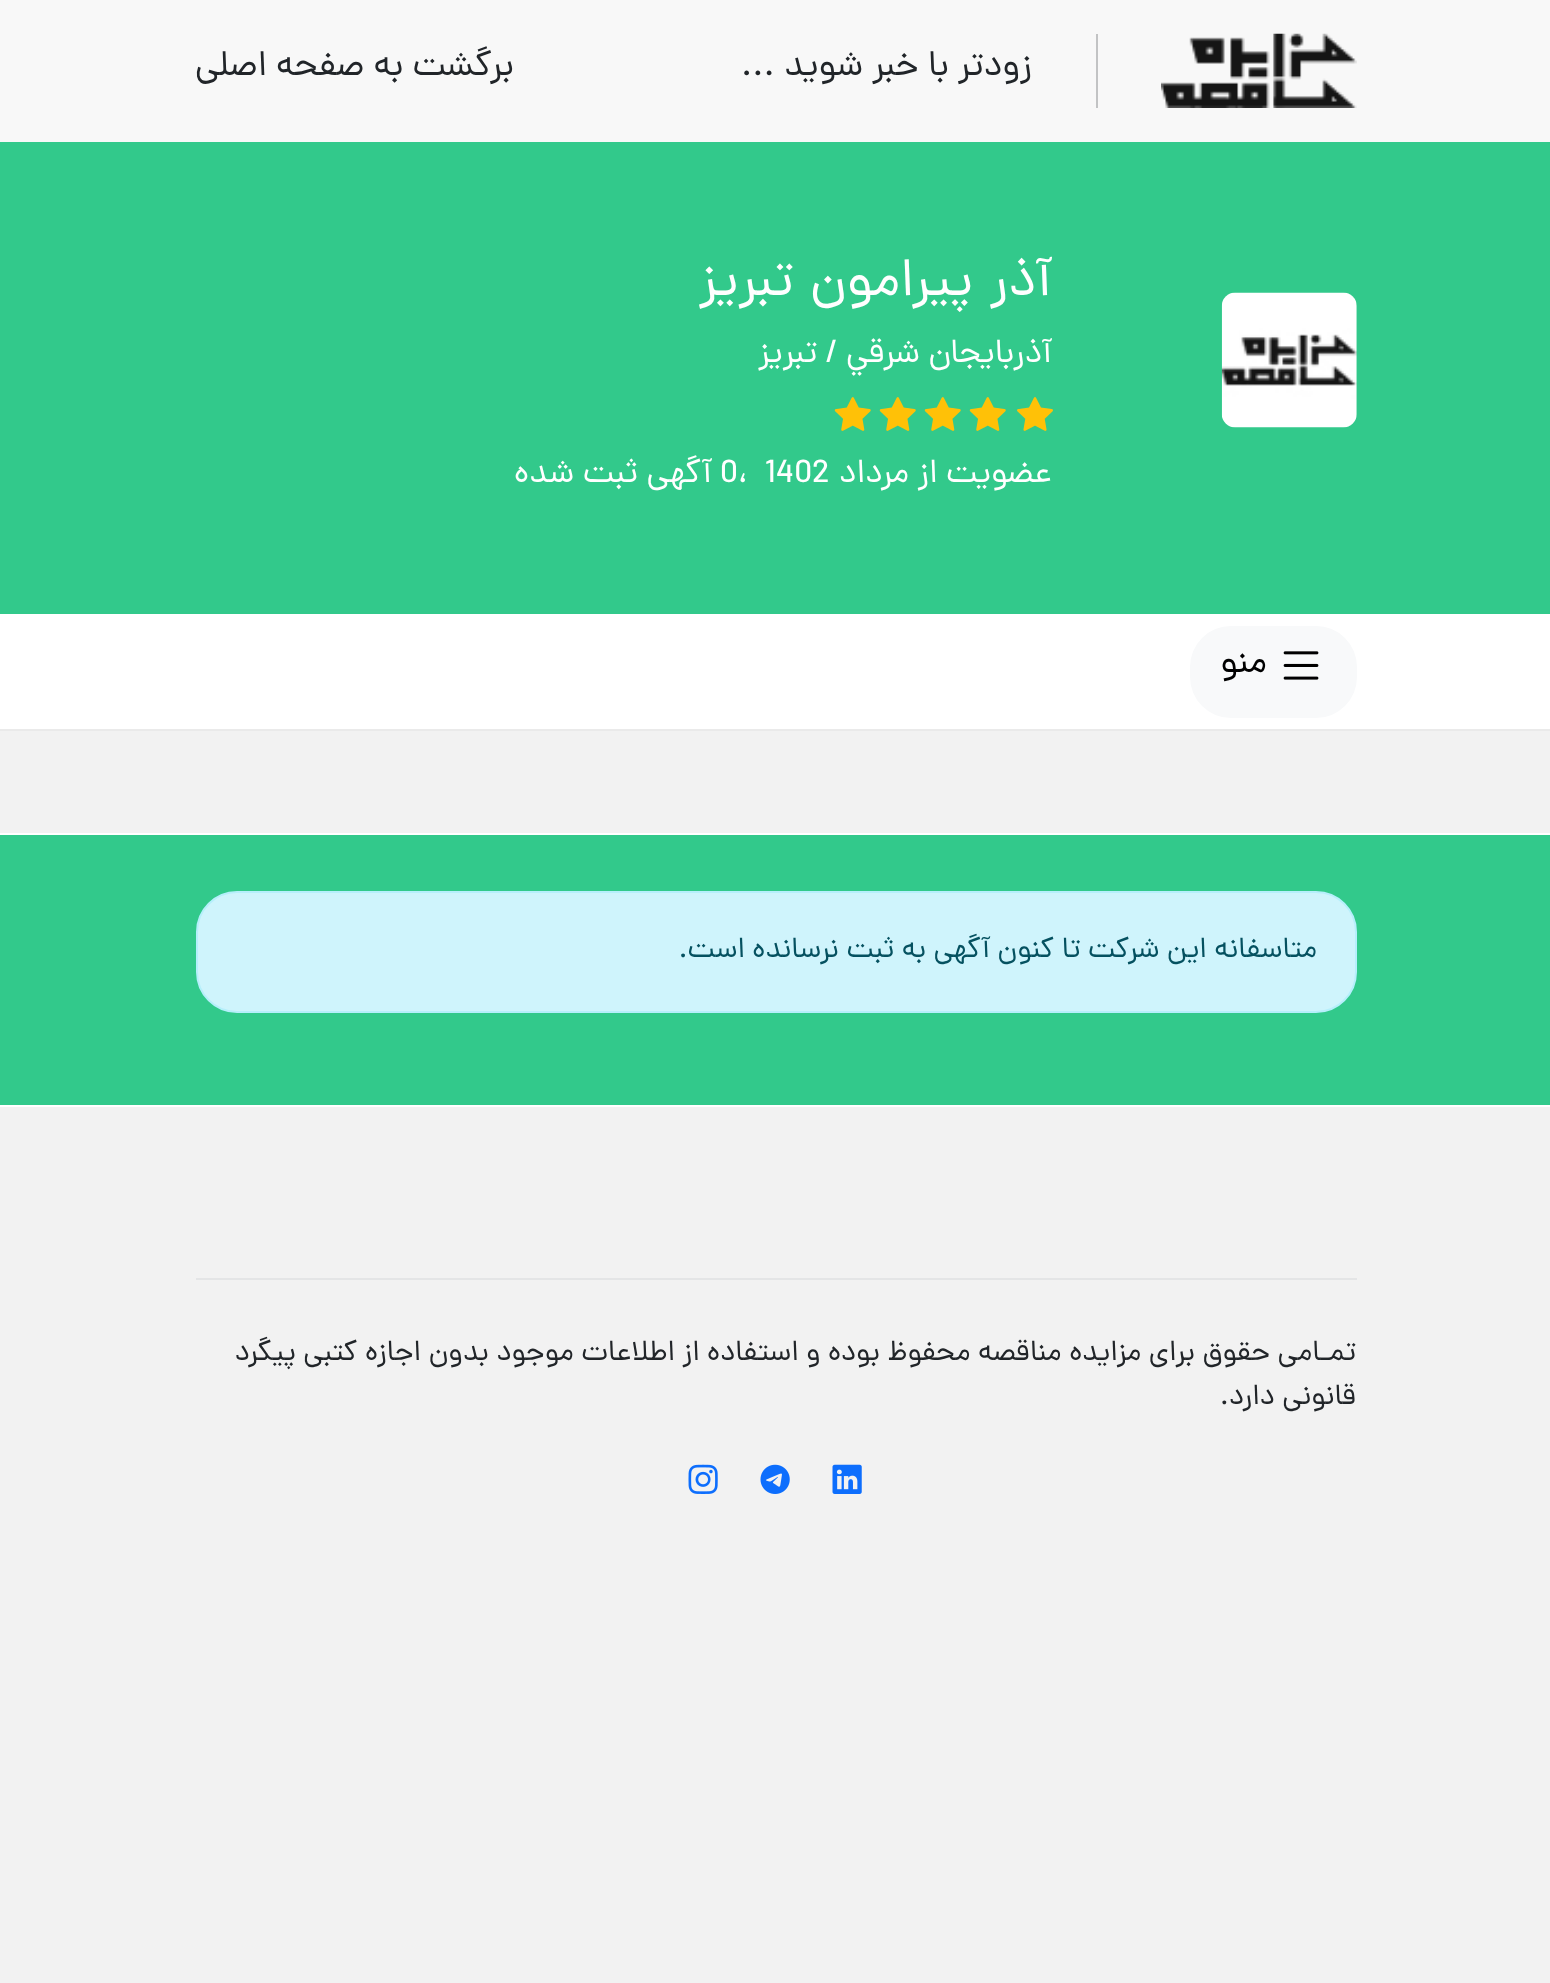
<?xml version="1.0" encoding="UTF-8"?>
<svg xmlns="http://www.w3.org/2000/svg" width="1550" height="1983">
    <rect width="100%" height="100%" fill="#F2F2F2"/>
    <rect x="0" y="0" width="1550" height="142" fill="#F8F8F8"/>
    <image x="1161" y="33" width="196" height="75" href="img_01.png"/>
    <rect x="1096" y="34" width="2" height="74" fill="#C2C3C4"/>
    <text x="1032" y="75" font-family="'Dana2'" font-size="36" direction="rtl" fill="#212529">زودتر با خبر شوید ...</text>
    <text x="514" y="75" font-family="'Dana2'" font-size="36" direction="rtl" fill="#212529">برگشت به صفحه اصلی</text>
    <rect x="0" y="142" width="1550" height="472" fill="#32C98B"/>
    <image x="1221" y="292" width="136" height="136" href="img_02.png"/>
    <text x="1052" y="295" word-spacing="3" font-family="'Dana2'" font-size="54" direction="rtl" fill="#FFFFFF">آذر پیرامون تبریز</text>
    <text x="1052" y="362" font-family="'Dana2'" font-size="33.75" direction="rtl" fill="#FFFFFF">آذربايجان شرقي / تبریز</text>
    <image x="1017" y="397" width="36" height="34" href="img_03.png"/>
    <image x="969" y="397" width="37" height="34" href="img_04.png"/>
    <image x="924" y="397" width="37" height="34" href="img_04.png"/>
    <image x="879" y="397" width="37" height="34" href="img_04.png"/>
    <image x="834" y="397" width="37" height="34" href="img_04.png"/>
    <text x="1052" y="482" font-family="'Dana2'" font-size="33.75" direction="rtl" fill="#FFFFFF">عضویت از</text>
    <text x="909" y="482" font-family="'Dana2'" font-size="33.75" direction="rtl" fill="#FFFFFF">مرداد</text>
    <text x="765" y="482" font-family="'Dana2'" font-size="33.75" fill="#FFFFFF">1402</text>
    <text x="720" y="482" font-family="'Dana2'" font-size="33.75" fill="#FFFFFF">0،</text>
    <text x="712" y="482" font-family="'Dana2'" font-size="33.75" direction="rtl" fill="#FFFFFF">آگهی ثبت شده</text>
    <rect x="0" y="614" width="1550" height="115" fill="#FFFFFF"/>
    <rect x="0" y="729" width="1550" height="2" fill="#EAEAEA"/>
    <rect x="1190" y="626" width="167" height="92" rx="41" fill="#F8F9FA"/>
    <image x="1283" y="651" width="36" height="29" href="img_05.png"/>
    <text x="1267" y="672" font-family="'Dana2'" font-size="36" direction="rtl" fill="#000000">منو</text>
    <rect x="0" y="835" width="1550" height="270" fill="#32C98B"/>
    <rect x="0" y="833" width="1550" height="2" fill="#FFFFFF"/>
    <rect x="0" y="1105" width="1550" height="2" fill="#FFFFFF"/>
    <rect x="197" y="892" width="1159" height="120" rx="40" fill="#CFF4FC" stroke="#B6EFFB" stroke-width="2"/>
    <text x="1317" y="957" font-family="'Dana2'" font-size="29.25" direction="rtl" fill="#055160">متاسفانه این شرکت تا کنون آگهی به ثبت نرسانده است.</text>
    <rect x="196" y="1278" width="1161" height="2" fill="#E4E5E6"/>
    <text x="1356" y="1360" font-family="'Dana2'" font-size="29.25" direction="rtl" fill="#212529">تمـامی حقوق برای مزایده مناقصه محفوظ بوده و استفاده از اطلاعات موجود بدون</text>
    <text x="421" y="1360" font-family="'Dana2'" font-size="29.25" direction="rtl" fill="#212529">اجازه کتبی پیگرد</text>
    <text x="1356" y="1404" font-family="'Dana2'" font-size="29.25" direction="rtl" fill="#212529">قانونی دارد.</text>
    <image x="832" y="1464" width="30" height="30" href="img_06.png"/>
    <image x="760" y="1464" width="30" height="30" href="img_07.png"/>
    <image x="688" y="1464" width="30" height="30" href="img_08.png"/>
</svg>
